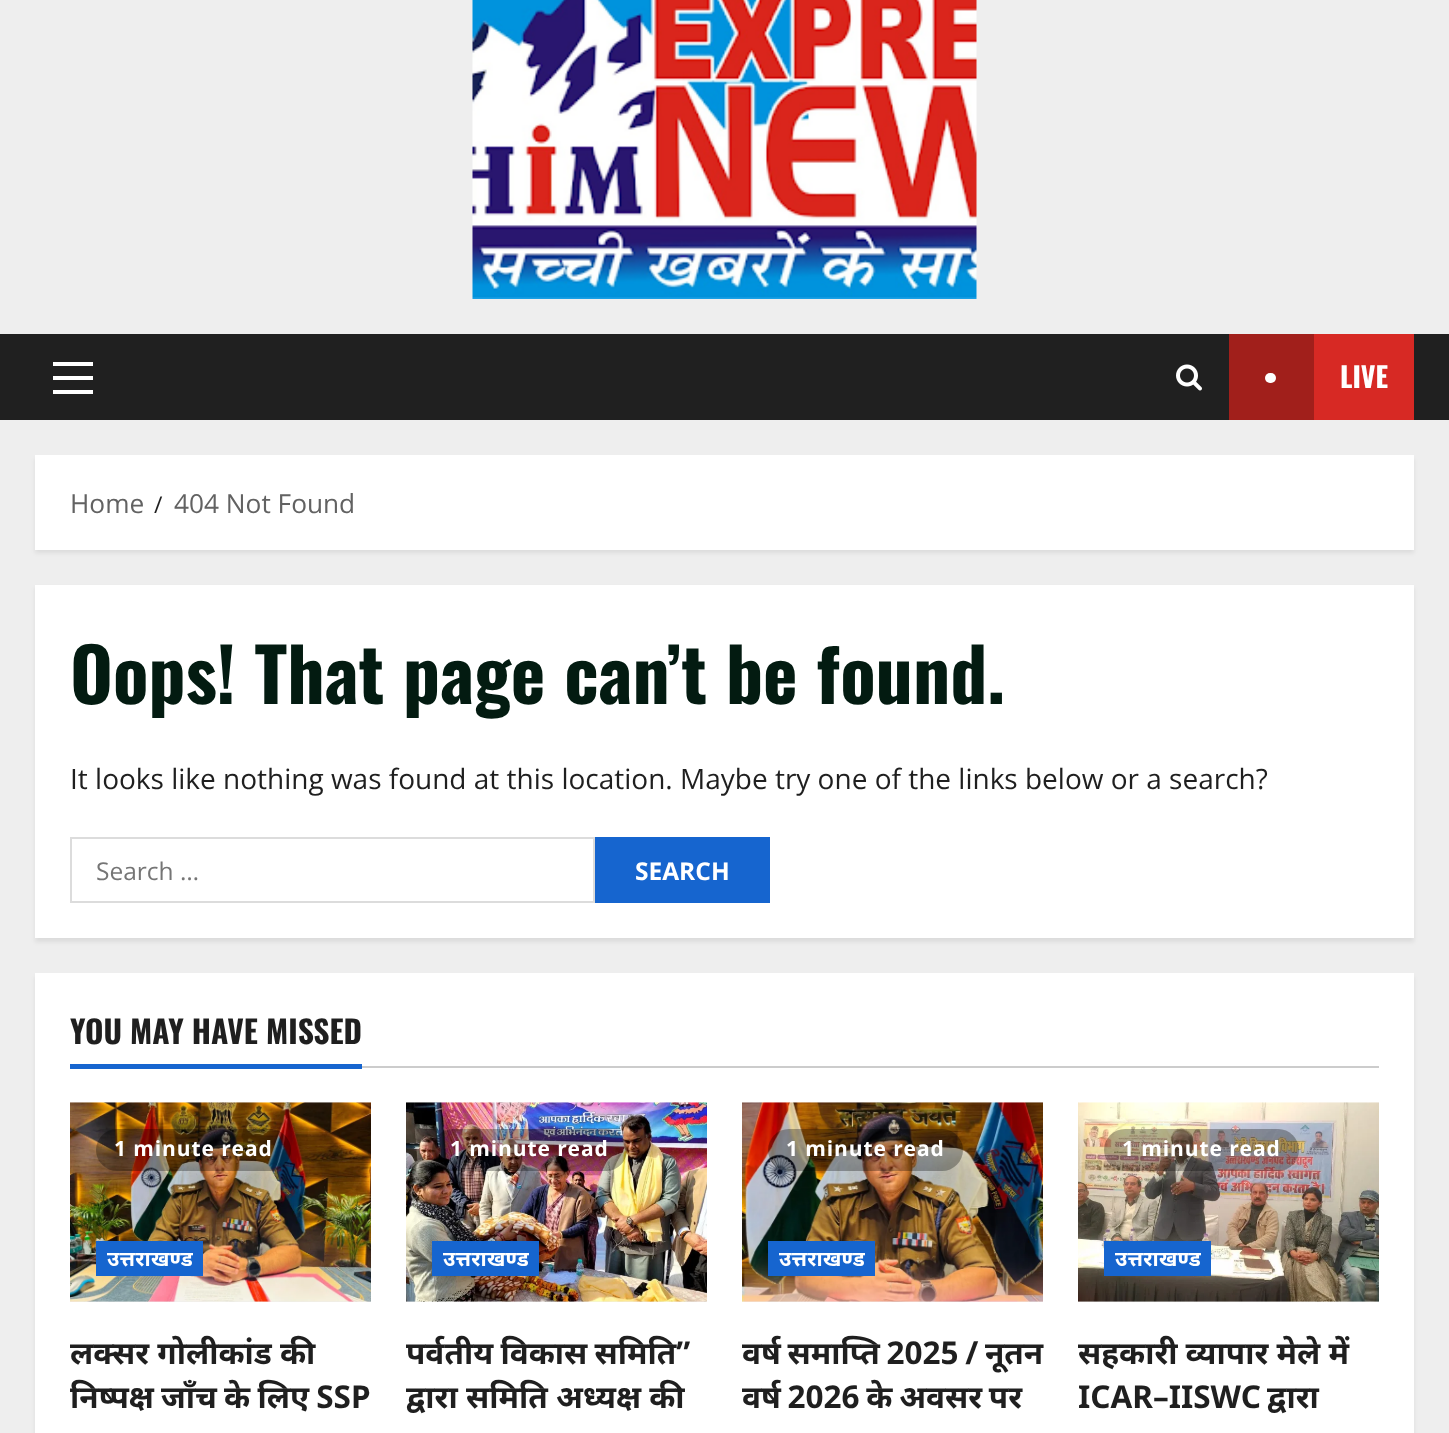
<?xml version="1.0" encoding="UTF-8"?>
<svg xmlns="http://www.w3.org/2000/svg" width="1449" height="1433">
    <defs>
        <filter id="blur1" x="-50%" y="-200%" width="200%" height="500%"><feGaussianBlur stdDeviation="2"/></filter>
    </defs>
    <rect width="100%" height="100%" fill="#EEEEEE"/>
    <image x="472" y="0" width="505" height="299" href="img_01.png"/>
    <rect x="0" y="334" width="1449" height="86" fill="#202020"/>
    <rect x="53" y="376" width="40" height="4" fill="#FFFFFF"/>
    <rect x="53" y="362" width="40" height="4" fill="#FFFFFF"/>
    <rect x="53" y="390" width="40" height="4" fill="#FFFFFF"/>
    <image x="1176" y="364" width="26" height="27" href="img_02.png"/>
    <rect x="1314" y="334" width="100" height="86" fill="#D72924"/>
    <rect x="1229" y="334" width="85" height="86" fill="#A11F1B"/>
    <rect x="1265" y="373" width="11" height="10" rx="5" fill="#FFFFFF"/>
    <text x="1340" y="388" font-family="Oswald" font-size="28" font-weight="700" fill="#FFFFFF">LIVE</text>
    <rect x="35" y="459" width="1379" height="94" fill="#000000" fill-opacity="0.08" filter="url(#blur1)"/>
    <rect x="35" y="455" width="1379" height="95" fill="#FFFFFF"/>
    <text x="70" y="513" font-family="Open Sans" font-size="26.25" fill="#626262">Home</text>
    <text x="154" y="513" font-family="Open Sans" font-size="23" fill="#1F1F1F">/</text>
    <text x="174" y="513" font-family="Open Sans" font-size="26.25" fill="#626262">404 Not Found</text>
    <rect x="35" y="588" width="1379" height="354" fill="#000000" fill-opacity="0.08" filter="url(#blur1)"/>
    <rect x="35" y="585" width="1379" height="353" fill="#FFFFFF"/>
    <text x="70" y="704" font-family="Oswald" font-size="73.5" font-weight="700" fill="#031B11">Oops! That page can’t be found.</text>
    <text x="70" y="789" font-family="Open Sans" font-size="28" fill="#1F1F1F">It looks like nothing was found at this location. Maybe try one of the links below or a search?</text>
    <rect x="71" y="838" width="523" height="64" fill="none" stroke="#DCDCDC" stroke-width="2"/>
    <text x="96" y="880" font-family="Open Sans" font-size="24.5" fill="#757575">Search …</text>
    <rect x="595" y="837" width="175" height="66" fill="#1665CF"/>
    <text x="635" y="880" font-family="Open Sans" font-size="24.5" font-weight="700" fill="#FFFFFF">SEARCH</text>
    <rect x="35" y="977" width="1379" height="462" fill="#000000" fill-opacity="0.08" filter="url(#blur1)"/>
    <rect x="35" y="973" width="1379" height="460" fill="#FFFFFF"/>
    <rect x="362" y="1066" width="1017" height="2" fill="#CCCCCC"/>
    <text x="70" y="1044" font-family="Oswald" font-size="31.5" font-weight="700" fill="#1F1F1F">YOU MAY HAVE MISSED</text>
    <rect x="70" y="1064" width="292" height="5" fill="#1665CF"/>
    <rect x="70" y="1301" width="301" height="1" fill="#ECECEC"/>
    <image x="70" y="1102" width="301" height="200" href="img_03.png"/>
    <rect x="96" y="1129" width="195" height="42" rx="21" fill="#000000" fill-opacity="0.3"/>
    <text x="114" y="1156" font-family="Open Sans" font-size="21" font-weight="700" letter-spacing="0.9" fill="#FFFFFF">1 minute read</text>
    <rect x="96" y="1241" width="107" height="35" fill="#1665CF"/>
    <text x="107" y="1266" font-family="Noto Sans" font-size="21" font-weight="700" letter-spacing="0.25" fill="#FFFFFF">उत्तराखण्ड</text>
    <text font-family="Noto Sans" font-size="31.5" font-weight="700" fill="#1F1F1F">
        <tspan x="70" y="1364">लक्सर गोलीकांड की</tspan>
        <tspan x="70" y="1408" word-spacing="-1">निष्पक्ष जाँच के लिए SSP</tspan>
    </text>
    <rect x="406" y="1301" width="301" height="1" fill="#ECECEC"/>
    <image x="406" y="1102" width="301" height="200" href="img_04.png"/>
    <rect x="432" y="1129" width="195" height="42" rx="21" fill="#000000" fill-opacity="0.3"/>
    <text x="450" y="1156" font-family="Open Sans" font-size="21" font-weight="700" letter-spacing="0.9" fill="#FFFFFF">1 minute read</text>
    <rect x="432" y="1241" width="107" height="35" fill="#1665CF"/>
    <text x="443" y="1266" font-family="Noto Sans" font-size="21" font-weight="700" letter-spacing="0.25" fill="#FFFFFF">उत्तराखण्ड</text>
    <text font-family="Noto Sans" font-size="31.5" font-weight="700" fill="#1F1F1F">
        <tspan x="406" y="1364" word-spacing="-1">पर्वतीय विकास समिति”</tspan>
        <tspan x="406" y="1408">द्वारा समिति अध्यक्ष की</tspan>
    </text>
    <rect x="742" y="1301" width="301" height="1" fill="#ECECEC"/>
    <image x="742" y="1102" width="301" height="200" href="img_05.png"/>
    <rect x="768" y="1129" width="195" height="42" rx="21" fill="#000000" fill-opacity="0.3"/>
    <text x="786" y="1156" font-family="Open Sans" font-size="21" font-weight="700" letter-spacing="0.9" fill="#FFFFFF">1 minute read</text>
    <rect x="768" y="1241" width="107" height="35" fill="#1665CF"/>
    <text x="779" y="1266" font-family="Noto Sans" font-size="21" font-weight="700" letter-spacing="0.25" fill="#FFFFFF">उत्तराखण्ड</text>
    <text font-family="Noto Sans" font-size="31.5" font-weight="700" fill="#1F1F1F">
        <tspan x="742" y="1364" word-spacing="-1.5">वर्ष समाप्ति 2025 / नूतन</tspan>
        <tspan x="742" y="1408" word-spacing="-1.5">वर्ष 2026 के अवसर पर</tspan>
    </text>
    <rect x="1078" y="1301" width="301" height="1" fill="#ECECEC"/>
    <image x="1078" y="1102" width="301" height="200" href="img_06.png"/>
    <rect x="1104" y="1129" width="195" height="42" rx="21" fill="#000000" fill-opacity="0.3"/>
    <text x="1122" y="1156" font-family="Open Sans" font-size="21" font-weight="700" letter-spacing="0.9" fill="#FFFFFF">1 minute read</text>
    <rect x="1104" y="1241" width="107" height="35" fill="#1665CF"/>
    <text x="1115" y="1266" font-family="Noto Sans" font-size="21" font-weight="700" letter-spacing="0.25" fill="#FFFFFF">उत्तराखण्ड</text>
    <text font-family="Noto Sans" font-size="31.5" font-weight="700" fill="#1F1F1F">
        <tspan x="1078" y="1364">सहकारी व्यापार मेले में</tspan>
        <tspan x="1078" y="1408" word-spacing="-2">ICAR–IISWC द्वारा</tspan>
    </text>
</svg>
